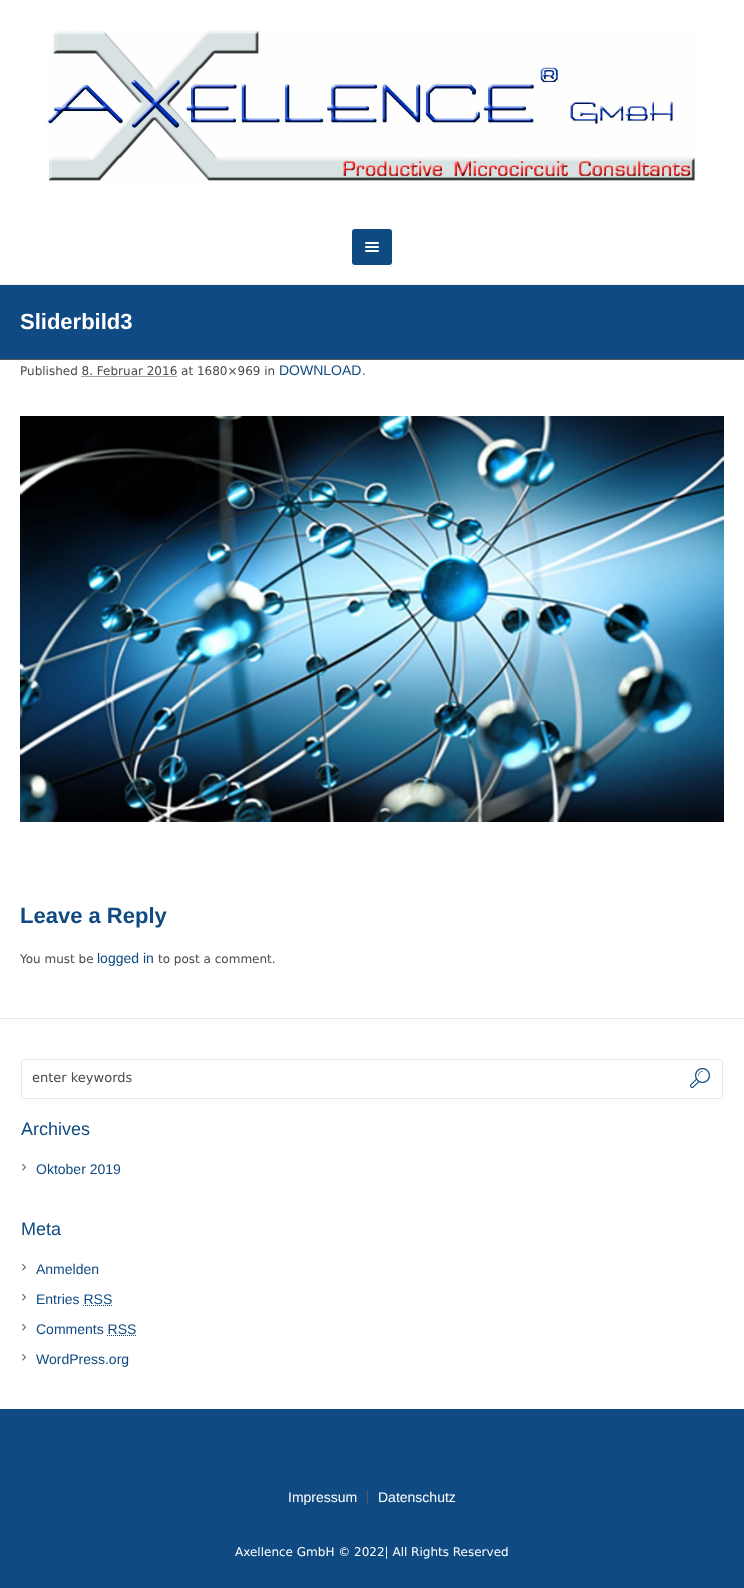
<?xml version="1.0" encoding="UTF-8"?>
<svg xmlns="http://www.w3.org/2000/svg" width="744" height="1588">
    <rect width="100%" height="100%" fill="#FFFFFF"/>
    <rect x="0" y="284" width="744" height="1" fill="#EBEBEB"/>
    <image x="46" y="30" width="651" height="152" href="img_01.png"/>
    <rect x="352" y="229" width="40" height="36" rx="3" fill="#0F4A82"/>
    <image x="365" y="242" width="14" height="10" href="img_02.png"/>
    <rect x="0" y="285" width="744" height="74" fill="#0F4A82"/>
    <rect x="0" y="359" width="744" height="1" fill="#5A5A5A"/>
    <text x="20" y="329" font-family="Liberation Sans" font-size="22" font-weight="700" fill="#FFFFFF">Sliderbild3</text>
    <text x="20" y="375" font-family="DejaVu Sans" font-size="12" fill="#464A4F">Published 8. Februar 2016 at 1680×969 in</text>
    <text x="279" y="375" font-family="Liberation Sans" font-size="14" fill="#0F4A82">DOWNLOAD</text>
    <text x="362" y="375" font-family="DejaVu Sans" font-size="12" fill="#464A4F">.</text>
    <path d="M 81.5 376.5 H 177.5" fill="none" stroke="#464A4F" stroke-dasharray="1 1"/>
    <image x="20" y="416" width="704" height="406" href="img_03.png"/>
    <text x="20" y="923" font-family="Liberation Sans" font-size="22" font-weight="700" fill="#0F4A82">Leave a Reply</text>
    <text x="20" y="963" font-family="DejaVu Sans" font-size="12" fill="#464A4F">You must be</text>
    <text x="97" y="963" font-family="Liberation Sans" font-size="14" fill="#0F4A82">logged in</text>
    <text x="158" y="963" font-family="DejaVu Sans" font-size="12" fill="#464A4F">to post a comment.</text>
    <rect x="0" y="1018" width="744" height="1" fill="#E5E8EC"/>
    <rect x="21.5" y="1059.5" width="701" height="39" rx="2.5" fill="none" stroke="#E5E8EC"/>
    <text x="32" y="1082" font-family="DejaVu Sans" font-size="13" fill="#464A4F">enter keywords</text>
    <image x="690" y="1068" width="20" height="20" href="img_04.png"/>
    <text x="21" y="1135" font-family="Liberation Sans" font-size="18" fill="#0F4A82">Archives</text>
    <image x="22" y="1163" width="4" height="8" href="img_05.png"/>
    <text x="36" y="1174" font-family="Liberation Sans" font-size="14" fill="#0F4A82">Oktober 2019</text>
    <text x="21" y="1235" font-family="Liberation Sans" font-size="18" fill="#0F4A82">Meta</text>
    <image x="22" y="1263" width="4" height="8" href="img_05.png"/>
    <text x="36" y="1274" font-family="Liberation Sans" font-size="14" fill="#0F4A82">Anmelden</text>
    <image x="22" y="1293" width="4" height="8" href="img_05.png"/>
    <text x="36" y="1304" font-family="Liberation Sans" font-size="14" fill="#0F4A82">Entries RSS</text>
    <path d="M 83 1305.5 H 112" fill="none" stroke="#0F4A82" stroke-dasharray="1 1"/>
    <image x="22" y="1323" width="4" height="8" href="img_05.png"/>
    <text x="36" y="1334" font-family="Liberation Sans" font-size="14" fill="#0F4A82">Comments RSS</text>
    <path d="M 107 1335.5 H 136" fill="none" stroke="#0F4A82" stroke-dasharray="1 1"/>
    <image x="22" y="1353" width="4" height="8" href="img_05.png"/>
    <text x="36" y="1364" font-family="Liberation Sans" font-size="14" fill="#0F4A82">WordPress.org</text>
    <rect x="0" y="1409" width="744" height="179" fill="#0F4A82"/>
    <text x="288" y="1502" font-family="Liberation Sans" font-size="14" fill="#FFFFFF">Impressum</text>
    <rect x="367" y="1490" width="1" height="14" fill="#5A5A5A"/>
    <text x="378" y="1502" font-family="Liberation Sans" font-size="14" fill="#FFFFFF">Datenschutz</text>
    <text x="235" y="1556" font-family="DejaVu Sans" font-size="12" fill="#FFFFFF">Axellence GmbH © 2022| All Rights Reserved</text>
</svg>
